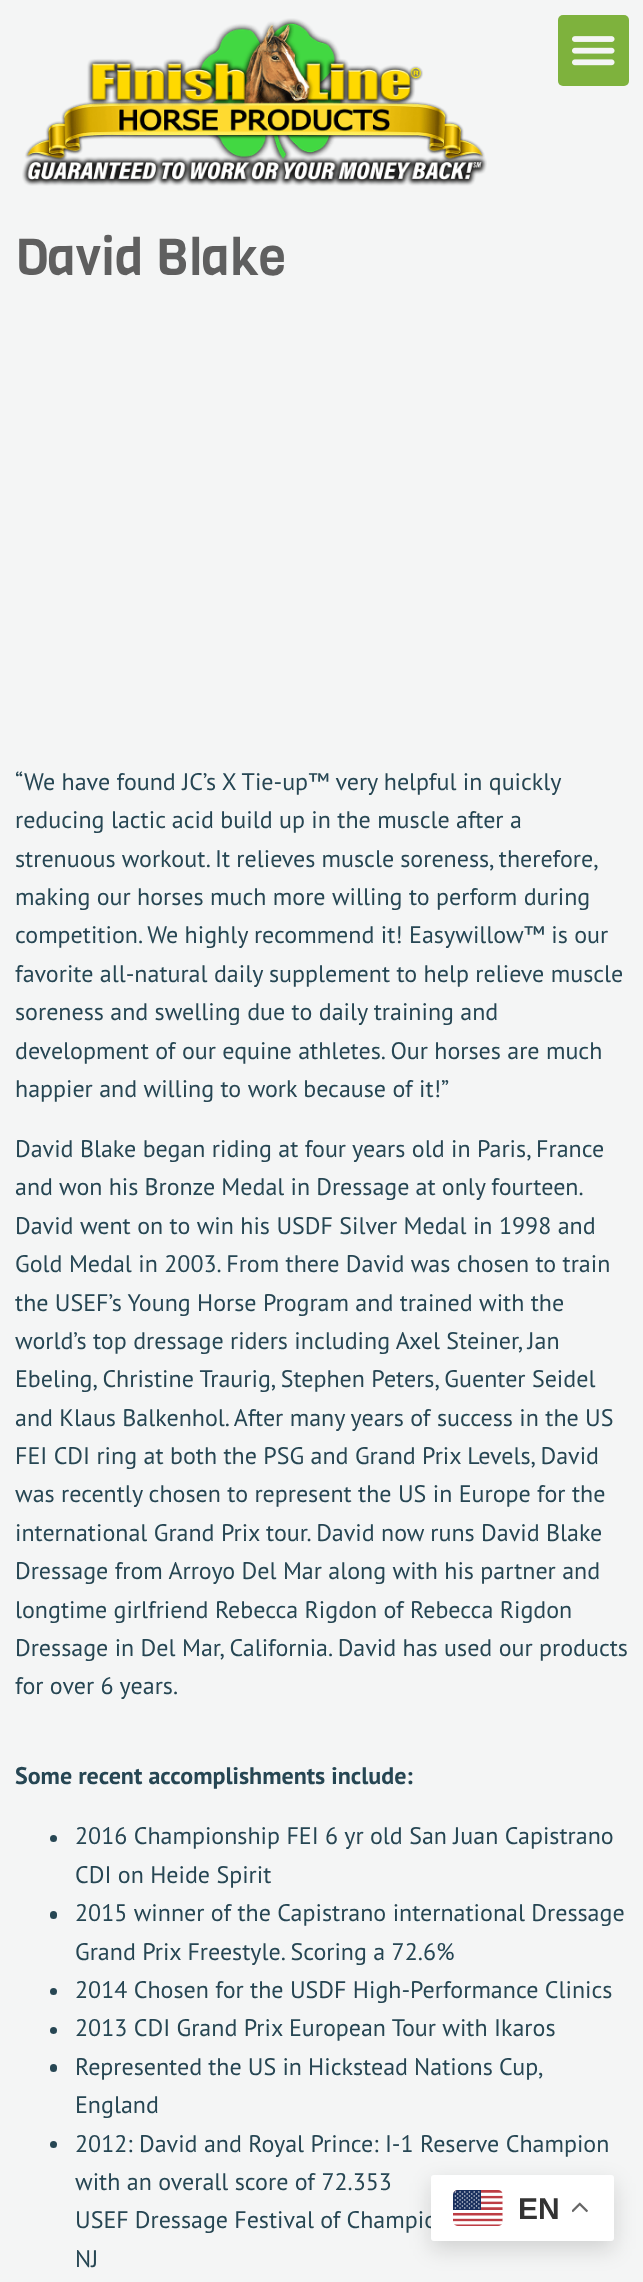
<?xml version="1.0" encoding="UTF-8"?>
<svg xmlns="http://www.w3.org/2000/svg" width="643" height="2282">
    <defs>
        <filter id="blur1" x="-50%" y="-200%" width="200%" height="500%"><feGaussianBlur stdDeviation="11"/></filter>
    </defs>
    <rect width="100%" height="100%" fill="#F4F5F5"/>
    <image x="22" y="18" width="465" height="168" href="img_01.png"/>
    <rect x="558" y="15" width="71" height="71" rx="5" fill="#7EB23D"/>
    <image x="572" y="36" width="43" height="30" href="img_02.png"/>
    <text x="15" y="275" font-family="Viga" font-size="51" fill="#5F5F5F">David Blake</text>
    <text font-family="PT Sans" font-size="24" fill="#264653">
        <tspan x="15" y="790">“We have found JC’s X Tie-up™ very helpful in quickly</tspan>
        <tspan x="15" y="828">reducing lactic acid build up in the muscle after a</tspan>
        <tspan x="15" y="867" word-spacing="-0.25">strenuous workout. It relieves muscle soreness, therefore,</tspan>
        <tspan x="15" y="905">making our horses much more willing to perform during</tspan>
        <tspan x="15" y="943">competition. We highly recommend it! Easywillow™ is our</tspan>
        <tspan x="15" y="982">favorite all-natural daily supplement to help relieve muscle</tspan>
        <tspan x="15" y="1020">soreness and swelling due to daily training and</tspan>
        <tspan x="15" y="1059">development of our equine athletes. Our horses are much</tspan>
        <tspan x="15" y="1097">happier and willing to work because of it!”</tspan>
    </text>
    <text font-family="PT Sans" font-size="24" fill="#264653">
        <tspan x="15" y="1157">David Blake began riding at four years old in Paris, France</tspan>
        <tspan x="15" y="1195" word-spacing="-0.25">and won his Bronze Medal in Dressage at only fourteen.</tspan>
        <tspan x="15" y="1234">David went on to win his USDF Silver Medal in 1998 and</tspan>
        <tspan x="15" y="1272">Gold Medal in 2003. From there David was chosen to train</tspan>
        <tspan x="15" y="1311">the USEF’s Young Horse Program and trained with the</tspan>
        <tspan x="15" y="1349">world’s top dressage riders including Axel Steiner, Jan</tspan>
        <tspan x="15" y="1387">Ebeling, Christine Traurig, Stephen Peters, Guenter Seidel</tspan>
        <tspan x="15" y="1426">and Klaus Balkenhol. After many years of success in the US</tspan>
        <tspan x="15" y="1464">FEI CDI ring at both the PSG and Grand Prix Levels, David</tspan>
        <tspan x="15" y="1502">was recently chosen to represent the US in Europe for the</tspan>
        <tspan x="15" y="1541">international Grand Prix tour. David now runs David Blake</tspan>
        <tspan x="15" y="1579">Dressage from Arroyo Del Mar along with his partner and</tspan>
        <tspan x="15" y="1618">longtime girlfriend Rebecca Rigdon of Rebecca Rigdon</tspan>
        <tspan x="15" y="1656">Dressage in Del Mar, California. David has used our products</tspan>
        <tspan x="15" y="1694">for over 6 years.</tspan>
    </text>
    <text x="15" y="1784" font-family="PT Sans" font-size="24" font-weight="700" fill="#264653">Some recent accomplishments include:</text>
    <circle cx="53.5" cy="1838.5" r="3.5" fill="#264653"/>
    <text font-family="PT Sans" font-size="24" fill="#264653">
        <tspan x="75" y="1844">2016 Championship FEI 6 yr old San Juan Capistrano</tspan>
        <tspan x="75" y="1883">CDI on Heide Spirit</tspan>
    </text>
    <rect x="50" y="1911" width="7" height="8" rx="3.5" fill="#264653"/>
    <text font-family="PT Sans" font-size="24" fill="#264653">
        <tspan x="75" y="1921">2015 winner of the Capistrano international Dressage</tspan>
        <tspan x="75" y="1960">Grand Prix Freestyle. Scoring a 72.6%</tspan>
    </text>
    <circle cx="53.5" cy="1991.5" r="3.5" fill="#264653"/>
    <text x="75" y="1998" font-family="PT Sans" font-size="24" fill="#264653">2014 Chosen for the USDF High-Performance Clinics</text>
    <circle cx="53.5" cy="2030.5" r="3.5" fill="#264653"/>
    <text x="75" y="2036" font-family="PT Sans" font-size="24" fill="#264653">2013 CDI Grand Prix European Tour with Ikaros</text>
    <rect x="50" y="2064" width="7" height="8" rx="3.5" fill="#264653"/>
    <text font-family="PT Sans" font-size="24" fill="#264653">
        <tspan x="75" y="2075" word-spacing="-0.25">Represented the US in Hickstead Nations Cup,</tspan>
        <tspan x="75" y="2113">England</tspan>
    </text>
    <circle cx="53.5" cy="2144.5" r="3.5" fill="#264653"/>
    <text font-family="PT Sans" font-size="24" fill="#264653">
        <tspan x="75" y="2152">2012: David and Royal Prince: I-1 Reserve Champion</tspan>
        <tspan x="75" y="2190">with an overall score of 72.353</tspan>
        <tspan x="75" y="2228" word-spacing="-0.25">USEF Dressage Festival of Champio</tspan>
        <tspan x="75" y="2267">NJ</tspan>
    </text>
    <rect x="431" y="2183" width="183" height="66" rx="3" fill="#000000" fill-opacity="0.15" filter="url(#blur1)"/>
    <rect x="431" y="2175" width="183" height="66" rx="3" fill="#FFFFFF"/>
    <image x="453" y="2190" width="50" height="36" href="img_03.png"/>
    <text x="518" y="2219" font-family="Liberation Sans" font-size="30" font-weight="700" fill="#333333">EN</text>
    <image x="572" y="2202" width="16" height="11" href="img_04.png"/>
</svg>
